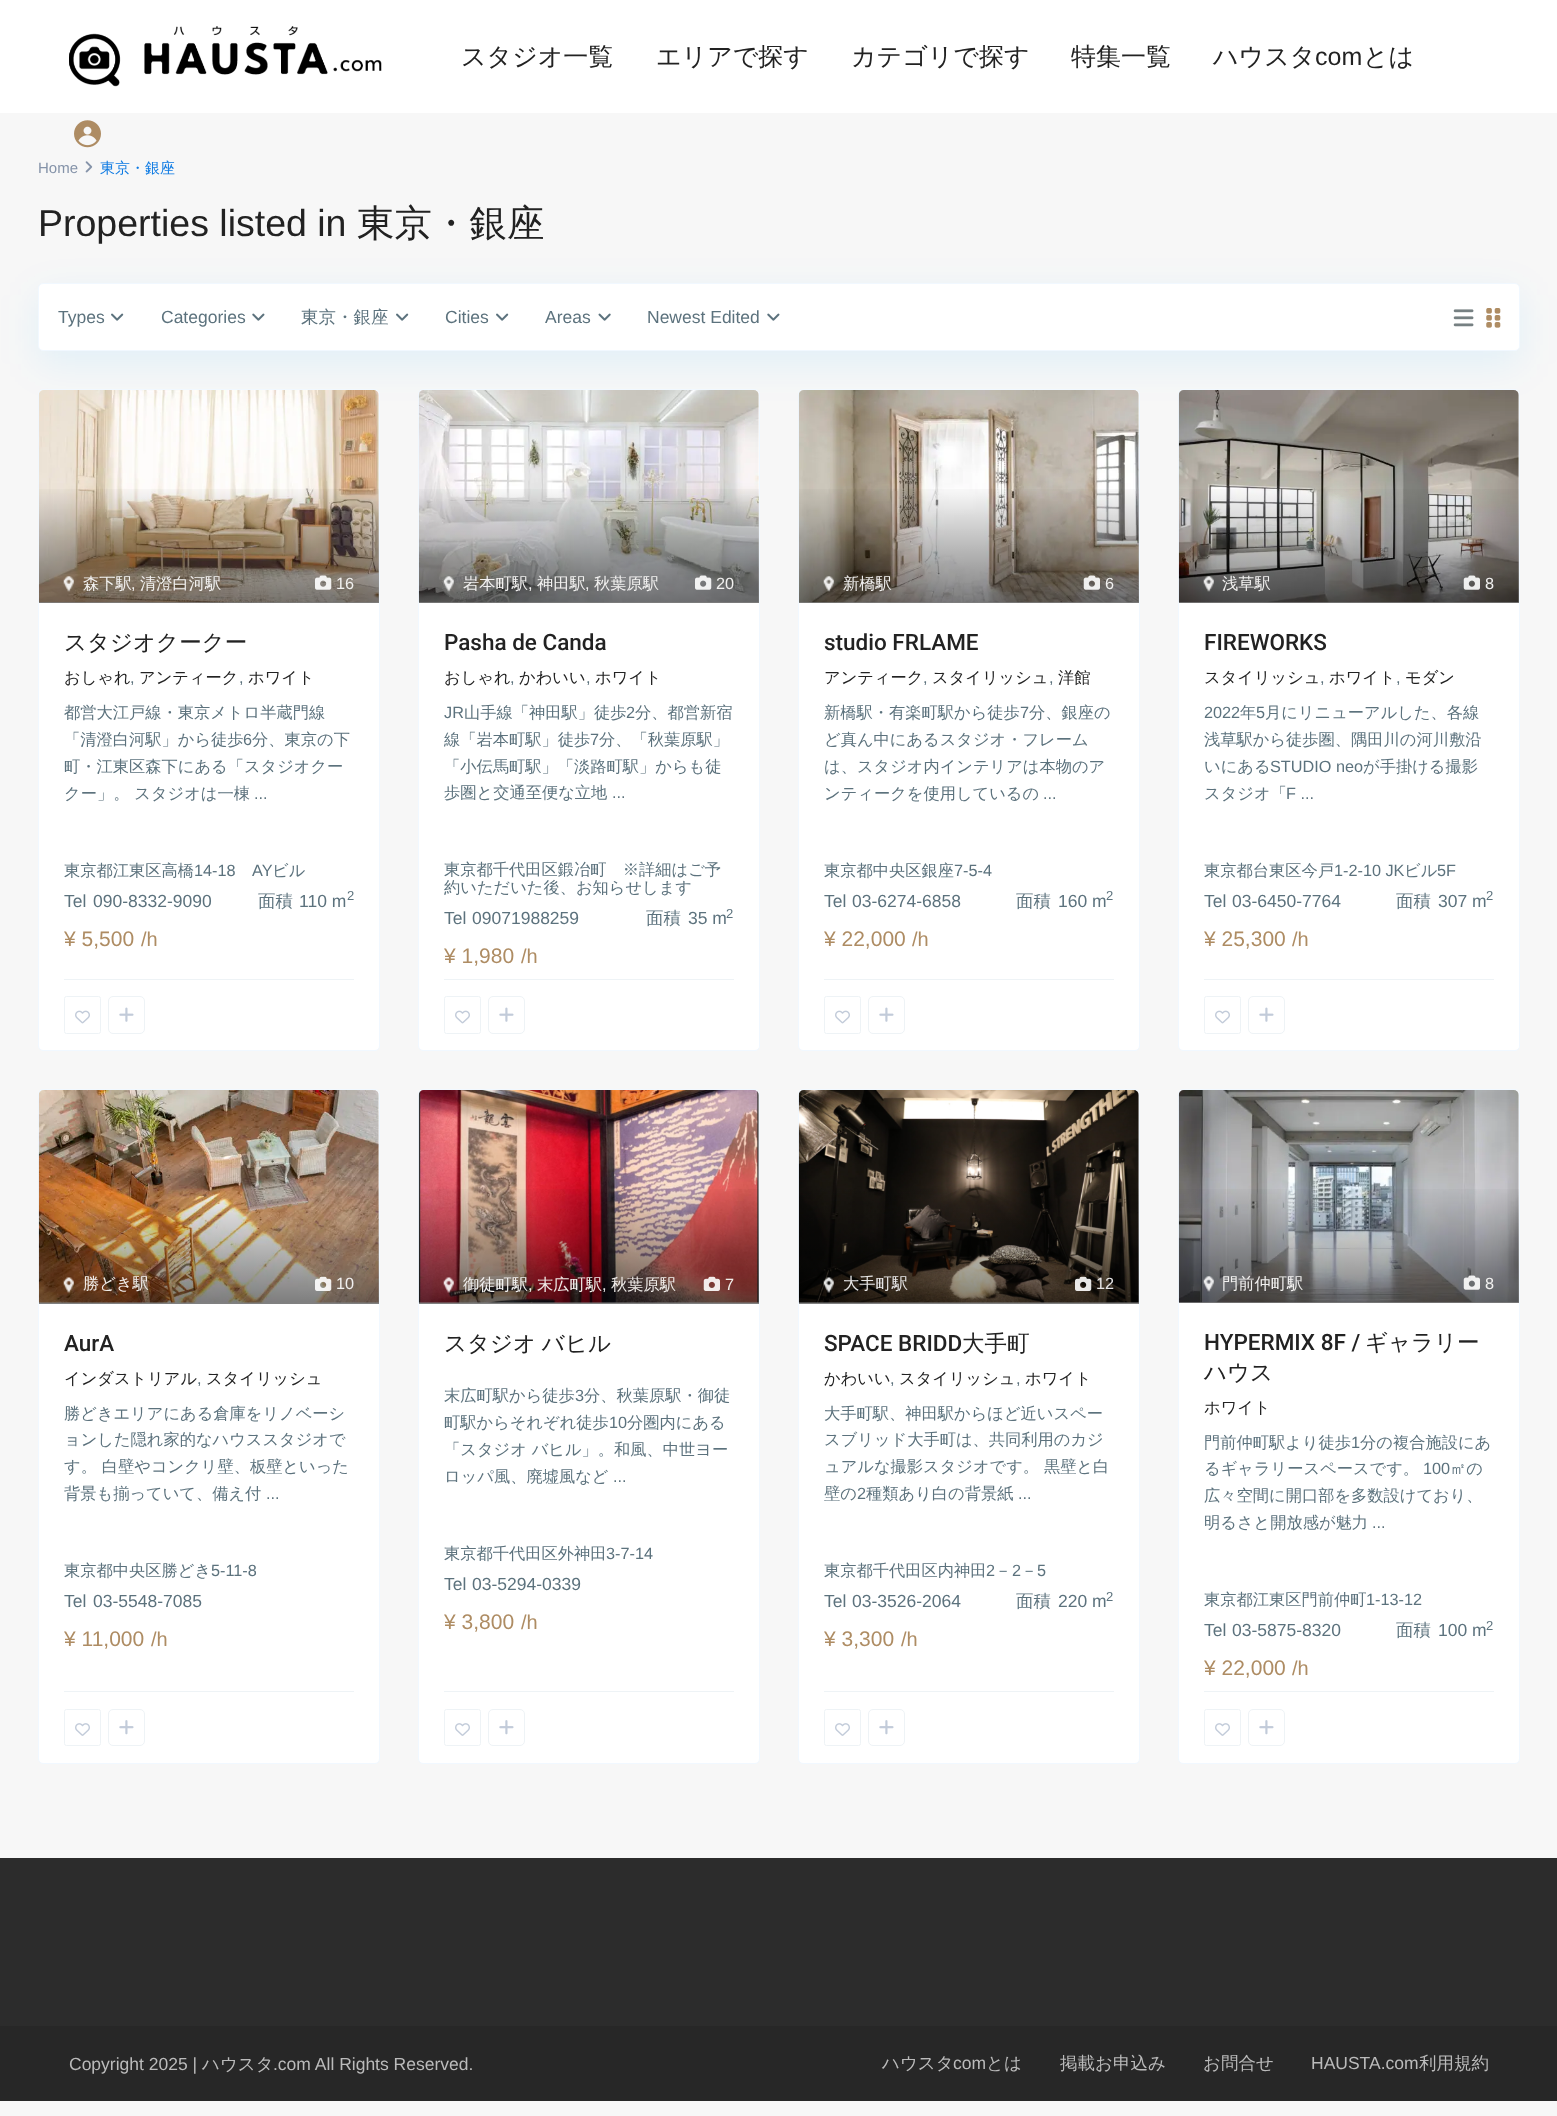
<?xml version="1.0" encoding="UTF-8"?>
<svg xmlns="http://www.w3.org/2000/svg" width="1557" height="2116">
    <defs>
        <filter id="blur1" x="-50%" y="-200%" width="200%" height="500%"><feGaussianBlur stdDeviation="19.5"/></filter>
        <linearGradient id="g1" gradientUnits="userSpaceOnUse" x1="209" y1="603" x2="209" y2="390"><stop offset="0" stop-color="#000000" stop-opacity="0.5"/><stop offset="0.56" stop-color="#000000" stop-opacity="0"/></linearGradient>
        <linearGradient id="g2" gradientUnits="userSpaceOnUse" x1="589" y1="603" x2="589" y2="390"><stop offset="0" stop-color="#000000" stop-opacity="0.5"/><stop offset="0.56" stop-color="#000000" stop-opacity="0"/></linearGradient>
        <linearGradient id="g3" gradientUnits="userSpaceOnUse" x1="969" y1="603" x2="969" y2="390"><stop offset="0" stop-color="#000000" stop-opacity="0.5"/><stop offset="0.56" stop-color="#000000" stop-opacity="0"/></linearGradient>
        <linearGradient id="g4" gradientUnits="userSpaceOnUse" x1="1349" y1="603" x2="1349" y2="390"><stop offset="0" stop-color="#000000" stop-opacity="0.5"/><stop offset="0.56" stop-color="#000000" stop-opacity="0"/></linearGradient>
        <linearGradient id="g5" gradientUnits="userSpaceOnUse" x1="209" y1="1304" x2="209" y2="1090"><stop offset="0" stop-color="#000000" stop-opacity="0.5"/><stop offset="0.56" stop-color="#000000" stop-opacity="0"/></linearGradient>
        <linearGradient id="g6" gradientUnits="userSpaceOnUse" x1="589" y1="1304" x2="589" y2="1090"><stop offset="0" stop-color="#000000" stop-opacity="0.5"/><stop offset="0.56" stop-color="#000000" stop-opacity="0"/></linearGradient>
        <linearGradient id="g7" gradientUnits="userSpaceOnUse" x1="969" y1="1304" x2="969" y2="1090"><stop offset="0" stop-color="#000000" stop-opacity="0.5"/><stop offset="0.56" stop-color="#000000" stop-opacity="0"/></linearGradient>
        <linearGradient id="g8" gradientUnits="userSpaceOnUse" x1="1349" y1="1303" x2="1349" y2="1090"><stop offset="0" stop-color="#000000" stop-opacity="0.5"/><stop offset="0.56" stop-color="#000000" stop-opacity="0"/></linearGradient>
    </defs>
    <rect width="100%" height="100%" fill="#F7F7F7"/>
    <rect x="0" y="0" width="1557" height="113" fill="#FFFFFF"/>
    <image x="69" y="26" width="313" height="61" href="img_01.png"/>
    <text x="461" y="65" font-family="WenQuanYi Zen Hei" font-size="25" font-weight="500" fill="#222222">スタジオ一覧</text>
    <text x="656" y="65" font-family="WenQuanYi Zen Hei" font-size="25" font-weight="500" fill="#222222">エリアで探す</text>
    <text x="851" y="65" font-family="WenQuanYi Zen Hei" font-size="25" font-weight="500" fill="#222222">カテゴリで探す</text>
    <text x="1071" y="65" font-family="WenQuanYi Zen Hei" font-size="25" font-weight="500" fill="#222222">特集一覧</text>
    <text x="1213" y="65" font-family="WenQuanYi Zen Hei" font-size="25" font-weight="500" fill="#222222">ハウスタ</text>
    <text x="1315" y="65" font-family="Liberation Sans" font-size="25" fill="#222222">com</text>
    <text x="1363" y="65" font-family="WenQuanYi Zen Hei" font-size="25" font-weight="500" fill="#222222">とは</text>
    <image x="74" y="120" width="27" height="28" href="img_02.png"/>
    <text x="38" y="173" font-family="Liberation Sans" font-size="15" fill="#8593A9">Home</text>
    <image x="85" y="161" width="8" height="12" href="img_03.png"/>
    <text x="100" y="173" font-family="WenQuanYi Zen Hei" font-size="15" font-weight="500" fill="#0D7AE3">東京・銀座</text>
    <text x="38" y="236" font-family="Liberation Sans" font-size="37.5" fill="#222222">Properties listed in</text>
    <text x="357" y="236" font-family="WenQuanYi Zen Hei" font-size="37.5" font-weight="500" fill="#222222">東京・銀座</text>
    <rect x="38" y="295" width="1482" height="69" rx="5" fill="#0798FF" fill-opacity="0.09" filter="url(#blur1)"/>
    <rect x="38.5" y="283.5" width="1481" height="67" rx="4.5" fill="#FFFFFF" stroke="#F1F8FF"/>
    <text x="58" y="323" font-family="Liberation Sans" font-size="17.5" fill="#5C727D">Types</text>
    <image x="111" y="313" width="13" height="8" href="img_04.png"/>
    <text x="161" y="323" font-family="Liberation Sans" font-size="17.5" fill="#5C727D">Categories</text>
    <image x="252" y="313" width="13" height="8" href="img_05.png"/>
    <text x="301" y="323" font-family="WenQuanYi Zen Hei" font-size="17.5" font-weight="500" fill="#5C727D">東京・銀座</text>
    <image x="396" y="313" width="13" height="8" href="img_04.png"/>
    <text x="445" y="323" font-family="Liberation Sans" font-size="17.5" fill="#5C727D">Cities</text>
    <image x="496" y="313" width="13" height="8" href="img_04.png"/>
    <text x="545" y="323" font-family="Liberation Sans" font-size="17.5" fill="#5C727D">Areas</text>
    <image x="598" y="313" width="13" height="8" href="img_06.png"/>
    <text x="647" y="323" font-family="Liberation Sans" font-size="17.5" fill="#5C727D">Newest Edited</text>
    <image x="767" y="313" width="13" height="8" href="img_05.png"/>
    <image x="1453" y="309" width="21" height="18" href="img_07.png"/>
    <image x="1486" y="308" width="15" height="20" href="img_08.png"/>
    <rect x="38.5" y="389.5" width="341" height="661" rx="4.5" fill="#FFFFFF" stroke="#F1F8FF"/>
    <image x="38" y="390" width="341" height="213" href="img_09.png"/>
    <rect x="39" y="489" width="340" height="114" fill="url(#g1)"/>
    <image x="63" y="576" width="11" height="16" href="img_10.png"/>
    <text x="83" y="589" font-family="WenQuanYi Zen Hei" font-size="16.25" font-weight="500" fill="#F2F1F0">森下駅</text>
    <text x="131" y="589" font-family="Liberation Sans" font-size="16.25" fill="#F2F1F0">,</text>
    <text x="140" y="589" font-family="WenQuanYi Zen Hei" font-size="16.25" font-weight="500" fill="#F2F1F0">清澄白河駅</text>
    <image x="315" y="575" width="17" height="15" href="img_11.png"/>
    <text x="336" y="589" font-family="Liberation Sans" font-size="16.25" fill="#F2F1F0">16</text>
    <text x="64" y="650" font-family="WenQuanYi Zen Hei" font-size="22.5" font-weight="500" fill="#222222">スタジオクークー</text>
    <text x="64" y="683" font-family="WenQuanYi Zen Hei" font-size="16.25" font-weight="500" fill="#222222">おしゃれ</text>
    <text x="130" y="683" font-family="Liberation Sans" font-size="16.25" fill="#5C727D">,</text>
    <text x="139" y="683" font-family="WenQuanYi Zen Hei" font-size="16.25" font-weight="500" fill="#222222">アンティーク</text>
    <text x="239" y="683" font-family="Liberation Sans" font-size="16.25" fill="#5C727D">,</text>
    <text x="248" y="683" font-family="WenQuanYi Zen Hei" font-size="16.25" font-weight="500" fill="#222222">ホワイト</text>
    <text font-family="WenQuanYi Zen Hei" font-size="16.25" font-weight="500" fill="#5C727D">
        <tspan x="64" y="718">都営大江戸線・東京メトロ半蔵門線</tspan>
        <tspan x="64" y="745">「清澄白河駅」から徒歩</tspan>
    </text>
    <text x="243" y="745" font-family="Liberation Sans" font-size="16.25" fill="#5C727D">6</text>
    <text x="252" y="745" font-family="WenQuanYi Zen Hei" font-size="16.25" font-weight="500" fill="#5C727D">分、東京の下</text>
    <text font-family="WenQuanYi Zen Hei" font-size="16.25" font-weight="500" fill="#5C727D">
        <tspan x="64" y="772">町・江東区森下にある「スタジオクー</tspan>
        <tspan x="64" y="799">クー」。 スタジオは一棟</tspan>
    </text>
    <text x="254" y="799" font-family="Liberation Sans" font-size="16.25" fill="#5C727D">...</text>
    <text x="64" y="876" font-family="WenQuanYi Zen Hei" font-size="16.25" font-weight="500" fill="#5C727D">東京都江東区高橋</text>
    <text x="194" y="876" font-family="Liberation Sans" font-size="16.25" fill="#5C727D">14-18</text>
    <text x="252" y="876" font-family="Liberation Sans" font-size="16.25" fill="#5C727D">AY</text>
    <text x="272" y="876" font-family="WenQuanYi Zen Hei" font-size="16.25" font-weight="500" fill="#5C727D">ビル</text>
    <text x="64" y="907" font-family="Liberation Sans" font-size="17.5" fill="#5C727D">Tel</text>
    <text x="93" y="907" font-family="Liberation Sans" font-size="17.5" fill="#5C727D">090-8332-9090</text>
    <text x="258" y="907" font-family="WenQuanYi Zen Hei" font-size="17.5" font-weight="500" fill="#5C727D">面積</text>
    <text x="299" y="907" font-family="Liberation Sans" font-size="17.5" fill="#5C727D">110 m</text>
    <text x="347" y="900" font-family="Liberation Sans" font-size="13" fill="#5C727D">2</text>
    <text x="64" y="946" font-family="Liberation Sans" font-size="21" fill="#AE8C63">¥ 5,500</text>
    <text x="141" y="946" font-family="Liberation Sans" font-size="20" fill="#AE8C63">/h</text>
    <rect x="64" y="979" width="290" height="1" fill="#EEF3F6"/>
    <rect x="64.5" y="996.5" width="36" height="37" rx="2" fill="none" stroke="#EEF3F6"/>
    <image x="75" y="1010" width="15" height="14" href="img_12.png"/>
    <rect x="108.5" y="996.5" width="36" height="37" rx="4.5" fill="none" stroke="#EEF3F6"/>
    <image x="119" y="1007" width="15" height="15" href="img_13.png"/>
    <rect x="418.5" y="389.5" width="341" height="661" rx="4.5" fill="#FFFFFF" stroke="#F1F8FF"/>
    <image x="418" y="390" width="341" height="213" href="img_14.png"/>
    <rect x="419" y="489" width="340" height="114" fill="url(#g2)"/>
    <image x="443" y="576" width="11" height="16" href="img_15.png"/>
    <text x="463" y="589" font-family="WenQuanYi Zen Hei" font-size="16.25" font-weight="500" fill="#F2F1F0">岩本町駅</text>
    <text x="528" y="589" font-family="Liberation Sans" font-size="16.25" fill="#F2F1F0">,</text>
    <text x="537" y="589" font-family="WenQuanYi Zen Hei" font-size="16.25" font-weight="500" fill="#F2F1F0">神田駅</text>
    <text x="585" y="589" font-family="Liberation Sans" font-size="16.25" fill="#F2F1F0">,</text>
    <text x="594" y="589" font-family="WenQuanYi Zen Hei" font-size="16.25" font-weight="500" fill="#F2F1F0">秋葉原駅</text>
    <image x="695" y="575" width="17" height="15" href="img_16.png"/>
    <text x="716" y="589" font-family="Liberation Sans" font-size="16.25" fill="#F2F1F0">20</text>
    <text x="444" y="650" font-family="Roboto" font-size="22.5" font-weight="500" fill="#222222">Pasha de Canda</text>
    <text x="444" y="683" font-family="WenQuanYi Zen Hei" font-size="16.25" font-weight="500" fill="#222222">おしゃれ</text>
    <text x="510" y="683" font-family="Liberation Sans" font-size="16.25" fill="#5C727D">,</text>
    <text x="519" y="683" font-family="WenQuanYi Zen Hei" font-size="16.25" font-weight="500" fill="#222222">かわいい</text>
    <text x="586" y="683" font-family="Liberation Sans" font-size="16.25" fill="#5C727D">,</text>
    <text x="595" y="683" font-family="WenQuanYi Zen Hei" font-size="16.25" font-weight="500" fill="#222222">ホワイト</text>
    <text x="444" y="718" font-family="Liberation Sans" font-size="16.25" fill="#5C727D">JR</text>
    <text x="464" y="718" font-family="WenQuanYi Zen Hei" font-size="16.25" font-weight="500" fill="#5C727D">山手線「神田駅」徒歩</text>
    <text x="626" y="718" font-family="Liberation Sans" font-size="16.25" fill="#5C727D">2</text>
    <text x="635" y="718" font-family="WenQuanYi Zen Hei" font-size="16.25" font-weight="500" fill="#5C727D">分、都営新宿</text>
    <text x="444" y="745" font-family="WenQuanYi Zen Hei" font-size="16.25" font-weight="500" fill="#5C727D">線「岩本町駅」徒歩</text>
    <text x="590" y="745" font-family="Liberation Sans" font-size="16.25" fill="#5C727D">7</text>
    <text x="599" y="745" font-family="WenQuanYi Zen Hei" font-size="16.25" font-weight="500" fill="#5C727D">分、「秋葉原駅」</text>
    <text font-family="WenQuanYi Zen Hei" font-size="16.25" font-weight="500" fill="#5C727D">
        <tspan x="444" y="772">「小伝馬町駅」「淡路町駅」からも徒</tspan>
        <tspan x="444" y="798">歩圏と交通至便な立地</tspan>
    </text>
    <text x="612" y="798" font-family="Liberation Sans" font-size="16.25" fill="#5C727D">...</text>
    <text font-family="WenQuanYi Zen Hei" font-size="16.25" font-weight="500" fill="#5C727D">
        <tspan x="444" y="875">東京都千代田区鍛冶町　※詳細はご予</tspan>
        <tspan x="444" y="893">約いただいた後、お知らせします</tspan>
    </text>
    <text x="444" y="924" font-family="Liberation Sans" font-size="17.5" fill="#5C727D">Tel</text>
    <text x="472" y="924" font-family="Liberation Sans" font-size="17.5" fill="#5C727D">09071988259</text>
    <text x="646" y="924" font-family="WenQuanYi Zen Hei" font-size="17.5" font-weight="500" fill="#5C727D">面積</text>
    <text x="688" y="924" font-family="Liberation Sans" font-size="17.5" fill="#5C727D">35 m</text>
    <text x="726" y="918" font-family="Liberation Sans" font-size="13" fill="#5C727D">2</text>
    <text x="444" y="963" font-family="Liberation Sans" font-size="21" fill="#AE8C63">¥ 1,980</text>
    <text x="521" y="963" font-family="Liberation Sans" font-size="20" fill="#AE8C63">/h</text>
    <rect x="444" y="979" width="290" height="1" fill="#EEF3F6"/>
    <rect x="444.5" y="996.5" width="36" height="37" rx="2" fill="none" stroke="#EEF3F6"/>
    <image x="455" y="1010" width="15" height="14" href="img_12.png"/>
    <rect x="488.5" y="996.5" width="36" height="37" rx="4.5" fill="none" stroke="#EEF3F6"/>
    <image x="499" y="1007" width="15" height="15" href="img_13.png"/>
    <rect x="798.5" y="389.5" width="341" height="661" rx="4.5" fill="#FFFFFF" stroke="#F1F8FF"/>
    <image x="798" y="390" width="341" height="213" href="img_17.png"/>
    <rect x="799" y="489" width="340" height="114" fill="url(#g3)"/>
    <image x="823" y="576" width="11" height="16" href="img_18.png"/>
    <text x="843" y="589" font-family="WenQuanYi Zen Hei" font-size="16.25" font-weight="500" fill="#F2F1F0">新橋駅</text>
    <image x="1083" y="575" width="17" height="15" href="img_19.png"/>
    <text x="1105" y="589" font-family="Liberation Sans" font-size="16.25" fill="#F2F1F0">6</text>
    <text x="824" y="650" font-family="Roboto" font-size="22.5" font-weight="500" fill="#222222">studio FRLAME</text>
    <text x="824" y="683" font-family="WenQuanYi Zen Hei" font-size="16.25" font-weight="500" fill="#222222">アンティーク</text>
    <text x="923" y="683" font-family="Liberation Sans" font-size="16.25" fill="#5C727D">,</text>
    <text x="932" y="683" font-family="WenQuanYi Zen Hei" font-size="16.25" font-weight="500" fill="#222222">スタイリッシュ</text>
    <text x="1049" y="683" font-family="Liberation Sans" font-size="16.25" fill="#5C727D">,</text>
    <text x="1058" y="683" font-family="WenQuanYi Zen Hei" font-size="16.25" font-weight="500" fill="#222222">洋館</text>
    <text x="824" y="718" font-family="WenQuanYi Zen Hei" font-size="16.25" font-weight="500" fill="#5C727D">新橋駅・有楽町駅から徒歩</text>
    <text x="1020" y="718" font-family="Liberation Sans" font-size="16.25" fill="#5C727D">7</text>
    <text x="1029" y="718" font-family="WenQuanYi Zen Hei" font-size="16.25" font-weight="500" fill="#5C727D">分、銀座の</text>
    <text font-family="WenQuanYi Zen Hei" font-size="16.25" font-weight="500" fill="#5C727D">
        <tspan x="824" y="745">ど真ん中にあるスタジオ・フレーム</tspan>
        <tspan x="824" y="772">は、スタジオ内インテリアは本物のア</tspan>
        <tspan x="824" y="799">ンティークを使用しているの</tspan>
    </text>
    <text x="1043" y="799" font-family="Liberation Sans" font-size="16.25" fill="#5C727D">...</text>
    <text x="824" y="876" font-family="WenQuanYi Zen Hei" font-size="16.25" font-weight="500" fill="#5C727D">東京都中央区銀座</text>
    <text x="954" y="876" font-family="Liberation Sans" font-size="16.25" fill="#5C727D">7-5-4</text>
    <text x="824" y="907" font-family="Liberation Sans" font-size="17.5" fill="#5C727D">Tel</text>
    <text x="852" y="907" font-family="Liberation Sans" font-size="17.5" fill="#5C727D">03-6274-6858</text>
    <text x="1016" y="907" font-family="WenQuanYi Zen Hei" font-size="17.5" font-weight="500" fill="#5C727D">面積</text>
    <text x="1058" y="907" font-family="Liberation Sans" font-size="17.5" fill="#5C727D">160 m</text>
    <text x="1106" y="900" font-family="Liberation Sans" font-size="13" fill="#5C727D">2</text>
    <text x="824" y="946" font-family="Liberation Sans" font-size="21" fill="#AE8C63">¥ 22,000</text>
    <text x="912" y="946" font-family="Liberation Sans" font-size="20" fill="#AE8C63">/h</text>
    <rect x="824" y="979" width="290" height="1" fill="#EEF3F6"/>
    <rect x="824.5" y="996.5" width="36" height="37" rx="2" fill="none" stroke="#EEF3F6"/>
    <image x="835" y="1010" width="15" height="14" href="img_12.png"/>
    <rect x="868.5" y="996.5" width="36" height="37" rx="4.5" fill="none" stroke="#EEF3F6"/>
    <image x="879" y="1007" width="15" height="15" href="img_13.png"/>
    <rect x="1178.5" y="389.5" width="341" height="661" rx="4.5" fill="#FFFFFF" stroke="#F1F8FF"/>
    <image x="1178" y="390" width="341" height="213" href="img_20.png"/>
    <rect x="1179" y="489" width="340" height="114" fill="url(#g4)"/>
    <image x="1203" y="576" width="11" height="16" href="img_21.png"/>
    <text x="1222" y="589" font-family="WenQuanYi Zen Hei" font-size="16.25" font-weight="500" fill="#F2F1F0">浅草駅</text>
    <image x="1463" y="575" width="17" height="15" href="img_22.png"/>
    <text x="1485" y="589" font-family="Liberation Sans" font-size="16.25" fill="#F2F1F0">8</text>
    <text x="1204" y="650" font-family="Roboto" font-size="22.5" font-weight="500" fill="#222222">FIREWORKS</text>
    <text x="1204" y="683" font-family="WenQuanYi Zen Hei" font-size="16.25" font-weight="500" fill="#222222">スタイリッシュ</text>
    <text x="1320" y="683" font-family="Liberation Sans" font-size="16.25" fill="#5C727D">,</text>
    <text x="1329" y="683" font-family="WenQuanYi Zen Hei" font-size="16.25" font-weight="500" fill="#222222">ホワイト</text>
    <text x="1396" y="683" font-family="Liberation Sans" font-size="16.25" fill="#5C727D">,</text>
    <text x="1405" y="683" font-family="WenQuanYi Zen Hei" font-size="16.25" font-weight="500" fill="#222222">モダン</text>
    <text x="1204" y="718" font-family="Liberation Sans" font-size="16.25" fill="#5C727D">2022</text>
    <text x="1240" y="718" font-family="WenQuanYi Zen Hei" font-size="16.25" font-weight="500" fill="#5C727D">年</text>
    <text x="1256" y="718" font-family="Liberation Sans" font-size="16.25" fill="#5C727D">5</text>
    <text x="1265" y="718" font-family="WenQuanYi Zen Hei" font-size="16.25" font-weight="500" fill="#5C727D">月にリニューアルした、各線</text>
    <text font-family="WenQuanYi Zen Hei" font-size="16.25" font-weight="500" fill="#5C727D">
        <tspan x="1204" y="745">浅草駅から徒歩圏、隅田川の河川敷沿</tspan>
        <tspan x="1204" y="772">いにある</tspan>
    </text>
    <text x="1270" y="772" font-family="Liberation Sans" font-size="16.25" fill="#5C727D">STUDIO neo</text>
    <text x="1363" y="772" font-family="WenQuanYi Zen Hei" font-size="16.25" font-weight="500" fill="#5C727D">が手掛ける撮影</text>
    <text x="1204" y="799" font-family="WenQuanYi Zen Hei" font-size="16.25" font-weight="500" fill="#5C727D">スタジオ「</text>
    <text x="1286" y="799" font-family="Liberation Sans" font-size="16.25" fill="#5C727D">F ...</text>
    <text x="1204" y="876" font-family="WenQuanYi Zen Hei" font-size="16.25" font-weight="500" fill="#5C727D">東京都台東区今戸</text>
    <text x="1334" y="876" font-family="Liberation Sans" font-size="16.25" fill="#5C727D">1-2-10 JK</text>
    <text x="1404" y="876" font-family="WenQuanYi Zen Hei" font-size="16.25" font-weight="500" fill="#5C727D">ビル</text>
    <text x="1437" y="876" font-family="Liberation Sans" font-size="16.25" fill="#5C727D">5F</text>
    <text x="1204" y="907" font-family="Liberation Sans" font-size="17.5" fill="#5C727D">Tel</text>
    <text x="1232" y="907" font-family="Liberation Sans" font-size="17.5" fill="#5C727D">03-6450-7764</text>
    <text x="1396" y="907" font-family="WenQuanYi Zen Hei" font-size="17.5" font-weight="500" fill="#5C727D">面積</text>
    <text x="1438" y="907" font-family="Liberation Sans" font-size="17.5" fill="#5C727D">307 m</text>
    <text x="1486" y="900" font-family="Liberation Sans" font-size="13" fill="#5C727D">2</text>
    <text x="1204" y="946" font-family="Liberation Sans" font-size="21" fill="#AE8C63">¥ 25,300</text>
    <text x="1292" y="946" font-family="Liberation Sans" font-size="20" fill="#AE8C63">/h</text>
    <rect x="1204" y="979" width="290" height="1" fill="#EEF3F6"/>
    <rect x="1204.5" y="996.5" width="36" height="37" rx="2" fill="none" stroke="#EEF3F6"/>
    <image x="1215" y="1010" width="15" height="14" href="img_12.png"/>
    <rect x="1248.5" y="996.5" width="36" height="37" rx="4.5" fill="none" stroke="#EEF3F6"/>
    <image x="1259" y="1007" width="15" height="15" href="img_13.png"/>
    <rect x="38.5" y="1089.5" width="341" height="674" rx="4.5" fill="#FFFFFF" stroke="#F1F8FF"/>
    <image x="38" y="1090" width="341" height="213" href="img_23.png"/>
    <rect x="39" y="1189" width="340" height="115" fill="url(#g5)"/>
    <image x="63" y="1277" width="11" height="16" href="img_24.png"/>
    <text x="83" y="1289" font-family="WenQuanYi Zen Hei" font-size="16.25" font-weight="500" fill="#F0ECE9">勝どき駅</text>
    <image x="315" y="1276" width="17" height="15" href="img_25.png"/>
    <text x="336" y="1289" font-family="Liberation Sans" font-size="16.25" fill="#F2F1F0">10</text>
    <text x="64" y="1351" font-family="Roboto" font-size="22.5" font-weight="500" fill="#222222">AurA</text>
    <text x="64" y="1384" font-family="WenQuanYi Zen Hei" font-size="16.25" font-weight="500" fill="#222222">インダストリアル</text>
    <text x="197" y="1384" font-family="Liberation Sans" font-size="16.25" fill="#5C727D">,</text>
    <text x="206" y="1384" font-family="WenQuanYi Zen Hei" font-size="16.25" font-weight="500" fill="#222222">スタイリッシュ</text>
    <text font-family="WenQuanYi Zen Hei" font-size="16.25" font-weight="500" fill="#5C727D">
        <tspan x="64" y="1419">勝どきエリアにある倉庫をリノベーシ</tspan>
        <tspan x="64" y="1445">ョンした隠れ家的なハウススタジオで</tspan>
        <tspan x="64" y="1472">す。 白壁やコンクリ壁、板壁といった</tspan>
        <tspan x="64" y="1499">背景も揃っていて、備え付</tspan>
    </text>
    <text x="266" y="1499" font-family="Liberation Sans" font-size="16.25" fill="#5C727D">...</text>
    <text x="64" y="1576" font-family="WenQuanYi Zen Hei" font-size="16.25" font-weight="500" fill="#5C727D">東京都中央区勝どき</text>
    <text x="211" y="1576" font-family="Liberation Sans" font-size="16.25" fill="#5C727D">5-11-8</text>
    <text x="64" y="1607" font-family="Liberation Sans" font-size="17.5" fill="#5C727D">Tel</text>
    <text x="93" y="1607" font-family="Liberation Sans" font-size="17.5" fill="#5C727D">03-5548-7085</text>
    <text x="64" y="1646" font-family="Liberation Sans" font-size="21" fill="#AE8C63">¥ 11,000</text>
    <text x="151" y="1646" font-family="Liberation Sans" font-size="20" fill="#AE8C63">/h</text>
    <rect x="64" y="1691" width="290" height="1" fill="#EEF3F6"/>
    <rect x="64.5" y="1709.5" width="36" height="36" rx="2" fill="none" stroke="#EEF3F6"/>
    <image x="75" y="1723" width="15" height="13" href="img_26.png"/>
    <rect x="108.5" y="1709.5" width="36" height="36" rx="4.5" fill="none" stroke="#EEF3F6"/>
    <image x="119" y="1720" width="15" height="15" href="img_27.png"/>
    <rect x="418.5" y="1089.5" width="341" height="674" rx="4.5" fill="#FFFFFF" stroke="#F1F8FF"/>
    <image x="418" y="1090" width="341" height="213" href="img_28.png"/>
    <rect x="419" y="1189" width="340" height="115" fill="url(#g6)"/>
    <image x="443" y="1277" width="11" height="16" href="img_29.png"/>
    <text x="463" y="1290" font-family="WenQuanYi Zen Hei" font-size="16.25" font-weight="500" fill="#F2F1F0">御徒町駅</text>
    <text x="528" y="1290" font-family="Liberation Sans" font-size="16.25" fill="#F0ECE9">,</text>
    <text x="537" y="1290" font-family="WenQuanYi Zen Hei" font-size="16.25" font-weight="500" fill="#F0ECE9">末広町駅</text>
    <text x="602" y="1290" font-family="Liberation Sans" font-size="16.25" fill="#E7E6E7">,</text>
    <text x="611" y="1290" font-family="WenQuanYi Zen Hei" font-size="16.25" font-weight="500" fill="#F0ECE9">秋葉原駅</text>
    <image x="703" y="1276" width="17" height="15" href="img_30.png"/>
    <text x="725" y="1290" font-family="Liberation Sans" font-size="16.25" fill="#F0ECE9">7</text>
    <text x="444" y="1351" word-spacing="-1" font-family="WenQuanYi Zen Hei" font-size="22.5" font-weight="500" fill="#222222">スタジオ バヒル</text>
    <text x="444" y="1401" font-family="WenQuanYi Zen Hei" font-size="16.25" font-weight="500" fill="#5C727D">末広町駅から徒歩</text>
    <text x="575" y="1401" font-family="Liberation Sans" font-size="16.25" fill="#5C727D">3</text>
    <text x="584" y="1401" font-family="WenQuanYi Zen Hei" font-size="16.25" font-weight="500" fill="#5C727D">分、秋葉原駅・御徒</text>
    <text x="444" y="1428" font-family="WenQuanYi Zen Hei" font-size="16.25" font-weight="500" fill="#5C727D">町駅からそれぞれ徒歩</text>
    <text x="609" y="1428" font-family="Liberation Sans" font-size="16.25" fill="#5C727D">10</text>
    <text x="627" y="1428" font-family="WenQuanYi Zen Hei" font-size="16.25" font-weight="500" fill="#5C727D">分圏内にある</text>
    <text font-family="WenQuanYi Zen Hei" font-size="16.25" font-weight="500" fill="#5C727D">
        <tspan x="444" y="1455">「スタジオ バヒル」。和風、中世ヨー</tspan>
        <tspan x="444" y="1482">ロッパ風、廃墟風など</tspan>
    </text>
    <text x="613" y="1482" font-family="Liberation Sans" font-size="16.25" fill="#5C727D">...</text>
    <text x="444" y="1559" font-family="WenQuanYi Zen Hei" font-size="16.25" font-weight="500" fill="#5C727D">東京都千代田区外神田</text>
    <text x="606" y="1559" font-family="Liberation Sans" font-size="16.25" fill="#5C727D">3-7-14</text>
    <text x="444" y="1590" font-family="Liberation Sans" font-size="17.5" fill="#5C727D">Tel</text>
    <text x="472" y="1590" font-family="Liberation Sans" font-size="17.5" fill="#5C727D">03-5294-0339</text>
    <text x="444" y="1629" font-family="Liberation Sans" font-size="21" fill="#AE8C63">¥ 3,800</text>
    <text x="521" y="1629" font-family="Liberation Sans" font-size="20" fill="#AE8C63">/h</text>
    <rect x="444" y="1691" width="290" height="1" fill="#EEF3F6"/>
    <rect x="444.5" y="1709.5" width="36" height="36" rx="2" fill="none" stroke="#EEF3F6"/>
    <image x="455" y="1723" width="15" height="13" href="img_26.png"/>
    <rect x="488.5" y="1709.5" width="36" height="36" rx="4.5" fill="none" stroke="#EEF3F6"/>
    <image x="499" y="1720" width="15" height="15" href="img_27.png"/>
    <rect x="798.5" y="1089.5" width="341" height="674" rx="4.5" fill="#FFFFFF" stroke="#F1F8FF"/>
    <image x="798" y="1090" width="341" height="213" href="img_31.png"/>
    <rect x="799" y="1189" width="340" height="115" fill="url(#g7)"/>
    <image x="823" y="1277" width="11" height="16" href="img_32.png"/>
    <text x="843" y="1289" font-family="WenQuanYi Zen Hei" font-size="16.25" font-weight="500" fill="#E7E6E7">大手町駅</text>
    <image x="1075" y="1276" width="17" height="15" href="img_33.png"/>
    <text x="1096" y="1289" font-family="Liberation Sans" font-size="16.25" fill="#E7E6E7">12</text>
    <text x="824" y="1351" font-family="Roboto" font-size="22.5" font-weight="500" fill="#222222">SPACE BRIDD</text>
    <text x="962" y="1351" font-family="WenQuanYi Zen Hei" font-size="22.5" font-weight="500" fill="#222222">大手町</text>
    <text x="824" y="1384" font-family="WenQuanYi Zen Hei" font-size="16.25" font-weight="500" fill="#222222">かわいい</text>
    <text x="890" y="1384" font-family="Liberation Sans" font-size="16.25" fill="#5C727D">,</text>
    <text x="899" y="1384" font-family="WenQuanYi Zen Hei" font-size="16.25" font-weight="500" fill="#222222">スタイリッシュ</text>
    <text x="1016" y="1384" font-family="Liberation Sans" font-size="16.25" fill="#5C727D">,</text>
    <text x="1025" y="1384" font-family="WenQuanYi Zen Hei" font-size="16.25" font-weight="500" fill="#222222">ホワイト</text>
    <text font-family="WenQuanYi Zen Hei" font-size="16.25" font-weight="500" fill="#5C727D">
        <tspan x="824" y="1419">大手町駅、神田駅からほど近いスペー</tspan>
        <tspan x="824" y="1445">スブリッド大手町は、共同利用のカジ</tspan>
        <tspan x="824" y="1472">ュアルな撮影スタジオです。 黒壁と白</tspan>
        <tspan x="824" y="1499">壁の</tspan>
    </text>
    <text x="857" y="1499" font-family="Liberation Sans" font-size="16.25" fill="#5C727D">2</text>
    <text x="866" y="1499" font-family="WenQuanYi Zen Hei" font-size="16.25" font-weight="500" fill="#5C727D">種類あり白の背景紙</text>
    <text x="1018" y="1499" font-family="Liberation Sans" font-size="16.25" fill="#5C727D">...</text>
    <text x="824" y="1576" font-family="WenQuanYi Zen Hei" font-size="16.25" font-weight="500" fill="#5C727D">東京都千代田区内神田</text>
    <text x="986" y="1576" font-family="Liberation Sans" font-size="16.25" fill="#5C727D">2</text>
    <text x="995" y="1576" font-family="WenQuanYi Zen Hei" font-size="16.25" font-weight="500" fill="#5C727D">－</text>
    <text x="1012" y="1576" font-family="Liberation Sans" font-size="16.25" fill="#5C727D">2</text>
    <text x="1021" y="1576" font-family="WenQuanYi Zen Hei" font-size="16.25" font-weight="500" fill="#5C727D">－</text>
    <text x="1037" y="1576" font-family="Liberation Sans" font-size="16.25" fill="#5C727D">5</text>
    <text x="824" y="1607" font-family="Liberation Sans" font-size="17.5" fill="#5C727D">Tel</text>
    <text x="852" y="1607" font-family="Liberation Sans" font-size="17.5" fill="#5C727D">03-3526-2064</text>
    <text x="1016" y="1607" font-family="WenQuanYi Zen Hei" font-size="17.5" font-weight="500" fill="#5C727D">面積</text>
    <text x="1058" y="1607" font-family="Liberation Sans" font-size="17.5" fill="#5C727D">220 m</text>
    <text x="1106" y="1601" font-family="Liberation Sans" font-size="13" fill="#5C727D">2</text>
    <text x="824" y="1646" font-family="Liberation Sans" font-size="21" fill="#AE8C63">¥ 3,300</text>
    <text x="901" y="1646" font-family="Liberation Sans" font-size="20" fill="#AE8C63">/h</text>
    <rect x="824" y="1691" width="290" height="1" fill="#EEF3F6"/>
    <rect x="824.5" y="1709.5" width="36" height="36" rx="2" fill="none" stroke="#EEF3F6"/>
    <image x="835" y="1723" width="15" height="13" href="img_26.png"/>
    <rect x="868.5" y="1709.5" width="36" height="36" rx="4.5" fill="none" stroke="#EEF3F6"/>
    <image x="879" y="1720" width="15" height="15" href="img_27.png"/>
    <rect x="1178.5" y="1089.5" width="341" height="674" rx="4.5" fill="#FFFFFF" stroke="#F1F8FF"/>
    <image x="1178" y="1090" width="341" height="213" href="img_34.png"/>
    <rect x="1179" y="1189" width="340" height="114" fill="url(#g8)"/>
    <image x="1203" y="1276" width="11" height="16" href="img_35.png"/>
    <text x="1222" y="1289" font-family="WenQuanYi Zen Hei" font-size="16.25" font-weight="500" fill="#F2F1F0">門前仲町駅</text>
    <image x="1463" y="1275" width="17" height="15" href="img_36.png"/>
    <text x="1485" y="1289" font-family="Liberation Sans" font-size="16.25" fill="#F2F1F0">8</text>
    <text x="1204" y="1350" font-family="Roboto" font-size="22.5" font-weight="500" fill="#222222">HYPERMIX 8F /</text>
    <text x="1365" y="1350" font-family="WenQuanYi Zen Hei" font-size="22.5" font-weight="500" fill="#222222">ギャラリー</text>
    <text x="1204" y="1380" font-family="WenQuanYi Zen Hei" font-size="22.5" font-weight="500" fill="#222222">ハウス</text>
    <text x="1204" y="1413" font-family="WenQuanYi Zen Hei" font-size="16.25" font-weight="500" fill="#222222">ホワイト</text>
    <text x="1204" y="1448" font-family="WenQuanYi Zen Hei" font-size="16.25" font-weight="500" fill="#5C727D">門前仲町駅より徒歩</text>
    <text x="1351" y="1448" font-family="Liberation Sans" font-size="16.25" fill="#5C727D">1</text>
    <text x="1360" y="1448" font-family="WenQuanYi Zen Hei" font-size="16.25" font-weight="500" fill="#5C727D">分の複合施設にあ</text>
    <text x="1204" y="1474" font-family="WenQuanYi Zen Hei" font-size="16.25" font-weight="500" fill="#5C727D">るギャラリースペースです。</text>
    <text x="1423" y="1474" font-family="Liberation Sans" font-size="16.25" fill="#5C727D">100</text>
    <text x="1450" y="1474" font-family="WenQuanYi Zen Hei" font-size="16.25" font-weight="500" fill="#5C727D">㎡の</text>
    <text font-family="WenQuanYi Zen Hei" font-size="16.25" font-weight="500" fill="#5C727D">
        <tspan x="1204" y="1501">広々空間に開口部を多数設けており、</tspan>
        <tspan x="1204" y="1528">明るさと開放感が魅力</tspan>
    </text>
    <text x="1372" y="1528" font-family="Liberation Sans" font-size="16.25" fill="#5C727D">...</text>
    <text x="1204" y="1605" font-family="WenQuanYi Zen Hei" font-size="16.25" font-weight="500" fill="#5C727D">東京都江東区門前仲町</text>
    <text x="1366" y="1605" font-family="Liberation Sans" font-size="16.25" fill="#5C727D">1-13-12</text>
    <text x="1204" y="1636" font-family="Liberation Sans" font-size="17.5" fill="#5C727D">Tel</text>
    <text x="1232" y="1636" font-family="Liberation Sans" font-size="17.5" fill="#5C727D">03-5875-8320</text>
    <text x="1396" y="1636" font-family="WenQuanYi Zen Hei" font-size="17.5" font-weight="500" fill="#5C727D">面積</text>
    <text x="1438" y="1636" font-family="Liberation Sans" font-size="17.5" fill="#5C727D">100 m</text>
    <text x="1486" y="1630" font-family="Liberation Sans" font-size="13" fill="#5C727D">2</text>
    <text x="1204" y="1675" font-family="Liberation Sans" font-size="21" fill="#AE8C63">¥ 22,000</text>
    <text x="1292" y="1675" font-family="Liberation Sans" font-size="20" fill="#AE8C63">/h</text>
    <rect x="1204" y="1691" width="290" height="1" fill="#EEF3F6"/>
    <rect x="1204.5" y="1709.5" width="36" height="36" rx="2" fill="none" stroke="#EEF3F6"/>
    <image x="1215" y="1723" width="15" height="13" href="img_26.png"/>
    <rect x="1248.5" y="1709.5" width="36" height="36" rx="4.5" fill="none" stroke="#EEF3F6"/>
    <image x="1259" y="1720" width="15" height="15" href="img_27.png"/>
    <rect x="0" y="1858" width="1557" height="168" fill="#2C2C2C"/>
    <rect x="0" y="2026" width="1557" height="75" fill="#272727"/>
    <text x="69" y="2070" font-family="Liberation Sans" font-size="17.5" fill="#BBBBBB">Copyright 2025 |</text>
    <text x="202" y="2070" font-family="WenQuanYi Zen Hei" font-size="17.5" font-weight="500" fill="#BBBBBB">ハウスタ</text>
    <text x="273" y="2070" font-family="Liberation Sans" font-size="17.5" fill="#BBBBBB">.com All Rights Reserved.</text>
    <text x="882" y="2069" font-family="WenQuanYi Zen Hei" font-size="17.5" font-weight="500" fill="#BBBBBB">ハウスタ</text>
    <text x="953" y="2069" font-family="Liberation Sans" font-size="17.5" fill="#BBBBBB">com</text>
    <text x="986" y="2069" font-family="WenQuanYi Zen Hei" font-size="17.5" font-weight="500" fill="#BBBBBB">とは</text>
    <text x="1060" y="2069" font-family="WenQuanYi Zen Hei" font-size="17.5" font-weight="500" fill="#BBBBBB">掲載お申込み</text>
    <text x="1203" y="2069" font-family="WenQuanYi Zen Hei" font-size="17.5" font-weight="500" fill="#BBBBBB">お問合せ</text>
    <text x="1311" y="2069" font-family="Liberation Sans" font-size="17.5" fill="#BBBBBB">HAUSTA.com</text>
    <text x="1419" y="2069" font-family="WenQuanYi Zen Hei" font-size="17.5" font-weight="500" fill="#BBBBBB">利用規約</text>
</svg>
